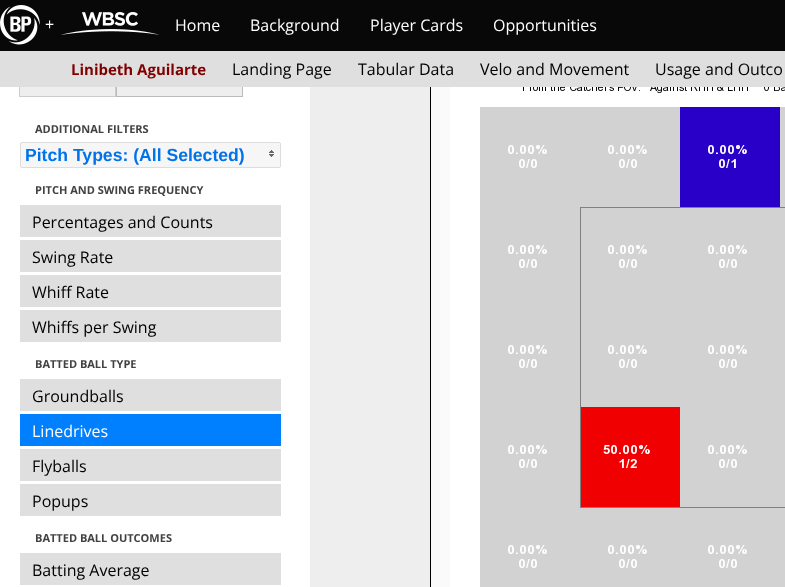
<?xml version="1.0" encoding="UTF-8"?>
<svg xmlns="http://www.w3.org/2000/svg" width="785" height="587">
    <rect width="100%" height="100%" fill="#FFFFFF"/>
    <rect x="0" y="0" width="785" height="51" fill="#080808"/>
    <image x="0" y="5" width="40" height="40" href="img_01.png"/>
    <text x="45" y="30" font-family="Open Sans" font-size="16" fill="#FFFFFF">+</text>
    <image x="60" y="12" width="100" height="23" href="img_02.png"/>
    <text x="175" y="31" font-family="Open Sans" font-size="16" fill="#FFFFFF">Home</text>
    <text x="250" y="31" font-family="Open Sans" font-size="16" fill="#FFFFFF">Background</text>
    <text x="370" y="31" font-family="Open Sans" font-size="16" fill="#FFFFFF">Player Cards</text>
    <text x="493" y="31" font-family="Open Sans" font-size="16" fill="#FFFFFF">Opportunities</text>
    <rect x="20" y="87" width="95" height="9" fill="#EEEEEE"/>
    <rect x="19.5" y="67.5" width="96" height="29" fill="none" stroke="#CCCCCC"/>
    <rect x="117" y="87" width="125" height="9" fill="#EEEEEE"/>
    <rect x="116.5" y="67.5" width="126" height="29" fill="none" stroke="#BBBBBB"/>
    <rect x="0" y="51" width="785" height="36" fill="#DFDFDF"/>
    <text x="71" y="75" font-family="Open Sans" font-size="15" font-weight="700" fill="#800000">Linibeth Aguilarte</text>
    <text x="232" y="75" font-family="Open Sans" font-size="16" fill="#000000">Landing Page</text>
    <text x="358" y="75" font-family="Open Sans" font-size="16" fill="#000000">Tabular Data</text>
    <text x="480" y="75" font-family="Open Sans" font-size="16" fill="#000000">Velo and Movement</text>
    <text x="655" y="75" font-family="Open Sans" font-size="16" fill="#000000">Usage and Outco</text>
    <text x="35" y="133" font-family="Open Sans" font-size="11" font-weight="700" fill="#424242">ADDITIONAL FILTERS</text>
    <rect x="20.5" y="142.5" width="260" height="25" rx="1.5" fill="#F6F6F6" stroke="#DDDDDD"/>
    <text x="25" y="161" font-family="Liberation Sans" font-size="17.6" font-weight="700" fill="#0073EA">Pitch Types: (All Selected)</text>
    <image x="269" y="150" width="5" height="7" href="img_03.png"/>
    <text x="35" y="194" font-family="Open Sans" font-size="11" font-weight="700" fill="#424242">PITCH AND SWING FREQUENCY</text>
    <rect x="20" y="205" width="261" height="32" fill="#DFDFDF"/>
    <text x="32" y="228" font-family="Open Sans" font-size="16" fill="#000000">Percentages and Counts</text>
    <rect x="20" y="240" width="261" height="32" fill="#DFDFDF"/>
    <text x="32" y="263" font-family="Open Sans" font-size="16" fill="#000000">Swing Rate</text>
    <rect x="20" y="275" width="261" height="32" fill="#DFDFDF"/>
    <text x="32" y="298" font-family="Open Sans" font-size="16" fill="#000000">Whiff Rate</text>
    <rect x="20" y="310" width="261" height="32" fill="#DFDFDF"/>
    <text x="32" y="333" font-family="Open Sans" font-size="16" fill="#000000">Whiffs per Swing</text>
    <text x="35" y="368" font-family="Open Sans" font-size="11" font-weight="700" fill="#424242">BATTED BALL TYPE</text>
    <rect x="20" y="379" width="261" height="32" fill="#DFDFDF"/>
    <text x="32" y="402" font-family="Open Sans" font-size="16" fill="#000000">Groundballs</text>
    <rect x="20" y="414" width="261" height="32" fill="#007FFF"/>
    <text x="32" y="437" font-family="Open Sans" font-size="16" fill="#FFFFFF">Linedrives</text>
    <rect x="20" y="449" width="261" height="32" fill="#DFDFDF"/>
    <text x="32" y="472" font-family="Open Sans" font-size="16" fill="#000000">Flyballs</text>
    <rect x="20" y="484" width="261" height="32" fill="#DFDFDF"/>
    <text x="32" y="507" font-family="Open Sans" font-size="16" fill="#000000">Popups</text>
    <text x="35" y="542" font-family="Open Sans" font-size="11" font-weight="700" fill="#424242">BATTED BALL OUTCOMES</text>
    <rect x="20" y="553" width="261" height="32" fill="#DFDFDF"/>
    <text x="32" y="576" font-family="Open Sans" font-size="16" fill="#000000">Batting Average</text>
    <rect x="310" y="87" width="120" height="500" fill="#EEEEEE"/>
    <image x="430" y="87" width="355" height="500" href="img_04.png"/>
</svg>
